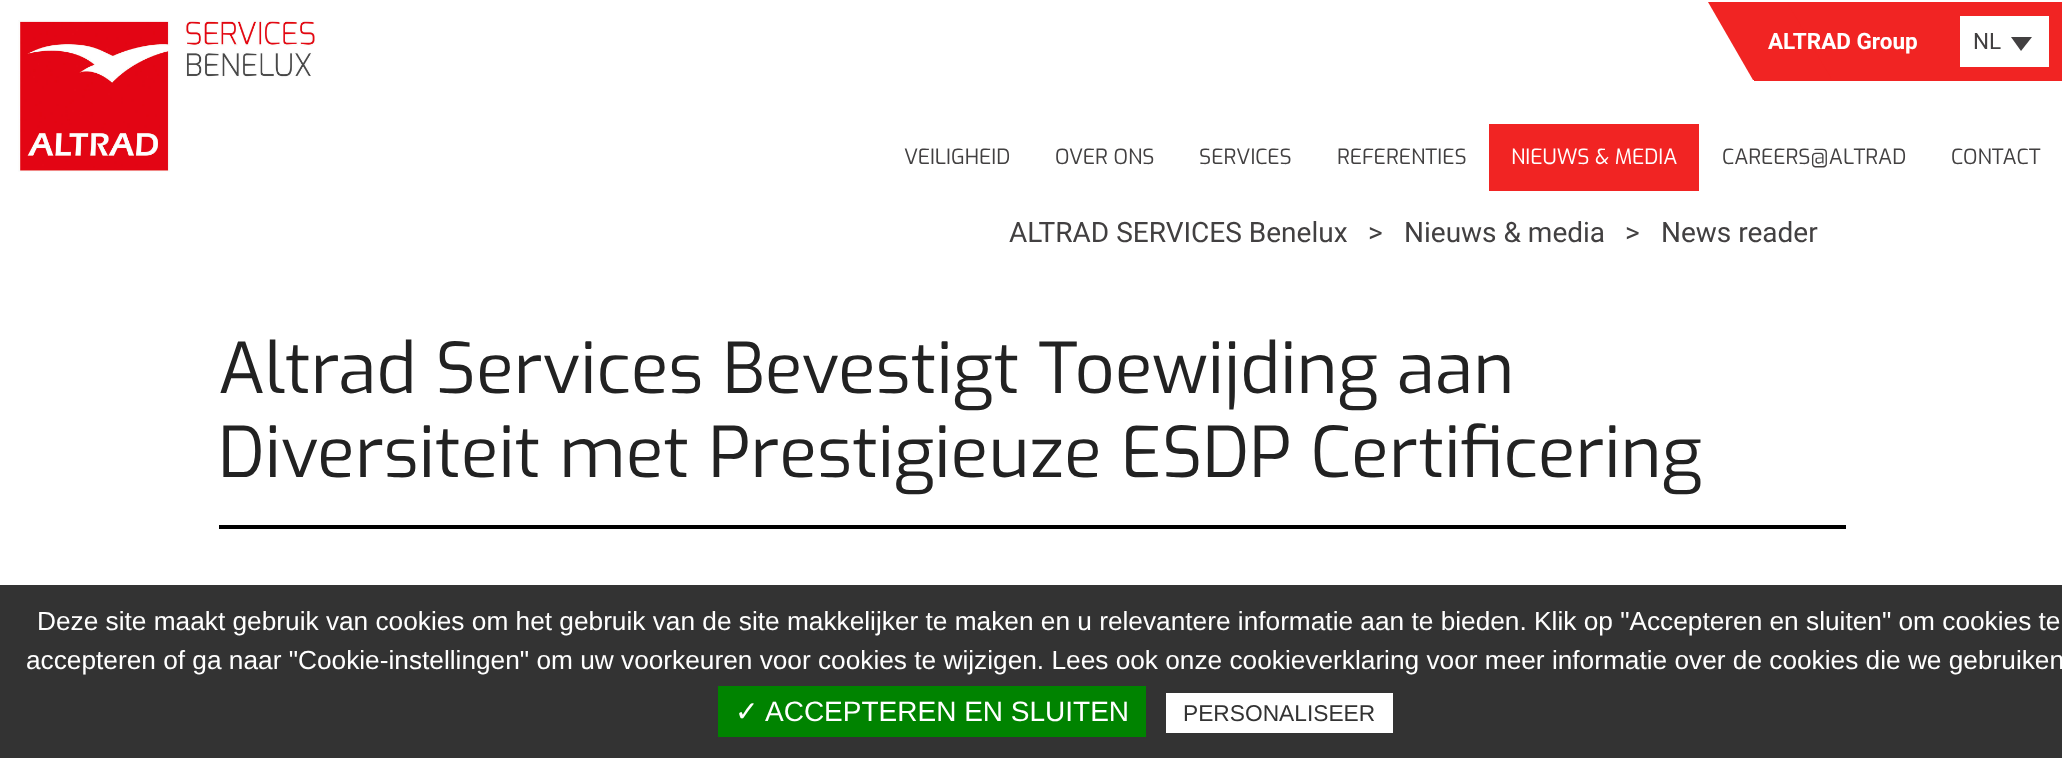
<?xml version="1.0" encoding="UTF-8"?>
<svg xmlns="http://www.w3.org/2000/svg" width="2062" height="758">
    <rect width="100%" height="100%" fill="#FFFFFF"/>
    <image x="18" y="20" width="297" height="152" href="img_01.png"/>
    <rect x="1754" y="2" width="308" height="79" fill="#F12423"/>
    <path d="M 1708 2 H 1787 L 1832 80 H 1753 Z" fill="#F12423"/>
    <text x="1768" y="49" font-family="Roboto" font-size="22.5" font-weight="700" fill="#FFFFFF">ALTRAD Group</text>
    <rect x="1960" y="16" width="89" height="51" fill="#FFFFFF"/>
    <text x="1973" y="49" font-family="Roboto" font-size="22.5" fill="#424041">NL</text>
    <path d="M 2011 37 H 2032 L 2021 51 Z" fill="#424041"/>
    <text x="904" y="164" font-family="Exo" font-size="21" fill="#424041">VEILIGHEID</text>
    <text x="1055" y="164" font-family="Exo" font-size="21" fill="#424041">OVER ONS</text>
    <text x="1199" y="164" font-family="Exo" font-size="21" fill="#424041">SERVICES</text>
    <text x="1337" y="164" font-family="Exo" font-size="21" fill="#424041">REFERENTIES</text>
    <rect x="1489" y="124" width="210" height="67" fill="#F12423"/>
    <text x="1511" y="164" font-family="Exo" font-size="21" fill="#FFFFFF">NIEUWS &amp; MEDIA</text>
    <text x="1722" y="164" font-family="Exo" font-size="21" fill="#424041">CAREERS@ALTRAD</text>
    <text x="1951" y="164" font-family="Exo" font-size="21" fill="#424041">CONTACT</text>
    <text x="1009" y="242" font-family="Roboto" font-size="28" fill="#424041">ALTRAD SERVICES Benelux</text>
    <text x="1368" y="242" font-family="Roboto" font-size="28" fill="#424041">&gt;</text>
    <text x="1404" y="242" font-family="Roboto" font-size="28" fill="#424041">Nieuws &amp; media</text>
    <text x="1625" y="242" font-family="Roboto" font-size="28" fill="#424041">&gt;</text>
    <text x="1661" y="242" font-family="Roboto" font-size="28" fill="#424041">News reader</text>
    <text font-family="Exo" font-size="70" fill="#222222">
        <tspan x="218" y="393">Altrad Services Bevestigt Toewijding aan</tspan>
        <tspan x="218" y="477">Diversiteit met Prestigieuze ESDP Certificering</tspan>
    </text>
    <rect x="219" y="525" width="1627" height="4" fill="#000000"/>
    <rect x="0" y="585" width="2062" height="173" fill="#333333"/>
    <text x="37" y="630" font-family="Liberation Sans" font-size="26.25" fill="#FFFFFF">Deze site maakt gebruik van cookies om het gebruik van de site makkelijker te maken en u relevantere informatie aan te bieden. Klik op "Accepteren en sluiten" om cookies te</text>
    <text x="26" y="669" font-family="Liberation Sans" font-size="26.25" fill="#FFFFFF">accepteren of ga naar "Cookie-instellingen" om uw voorkeuren voor cookies te wijzigen. Lees ook onze cookieverklaring voor meer informatie over de cookies die we gebruiken</text>
    <rect x="718" y="686" width="428" height="51" fill="#008300"/>
    <text x="735" y="721" font-family="DejaVu Sans" font-size="28" fill="#FFFFFF">✓</text>
    <text x="765" y="721" font-family="Liberation Sans" font-size="28" fill="#FFFFFF">ACCEPTEREN EN SLUITEN</text>
    <rect x="1166" y="693" width="227" height="40" fill="#FFFFFF"/>
    <text x="1183" y="721" font-family="Liberation Sans" font-size="22.75" fill="#333333">PERSONALISEER</text>
</svg>
